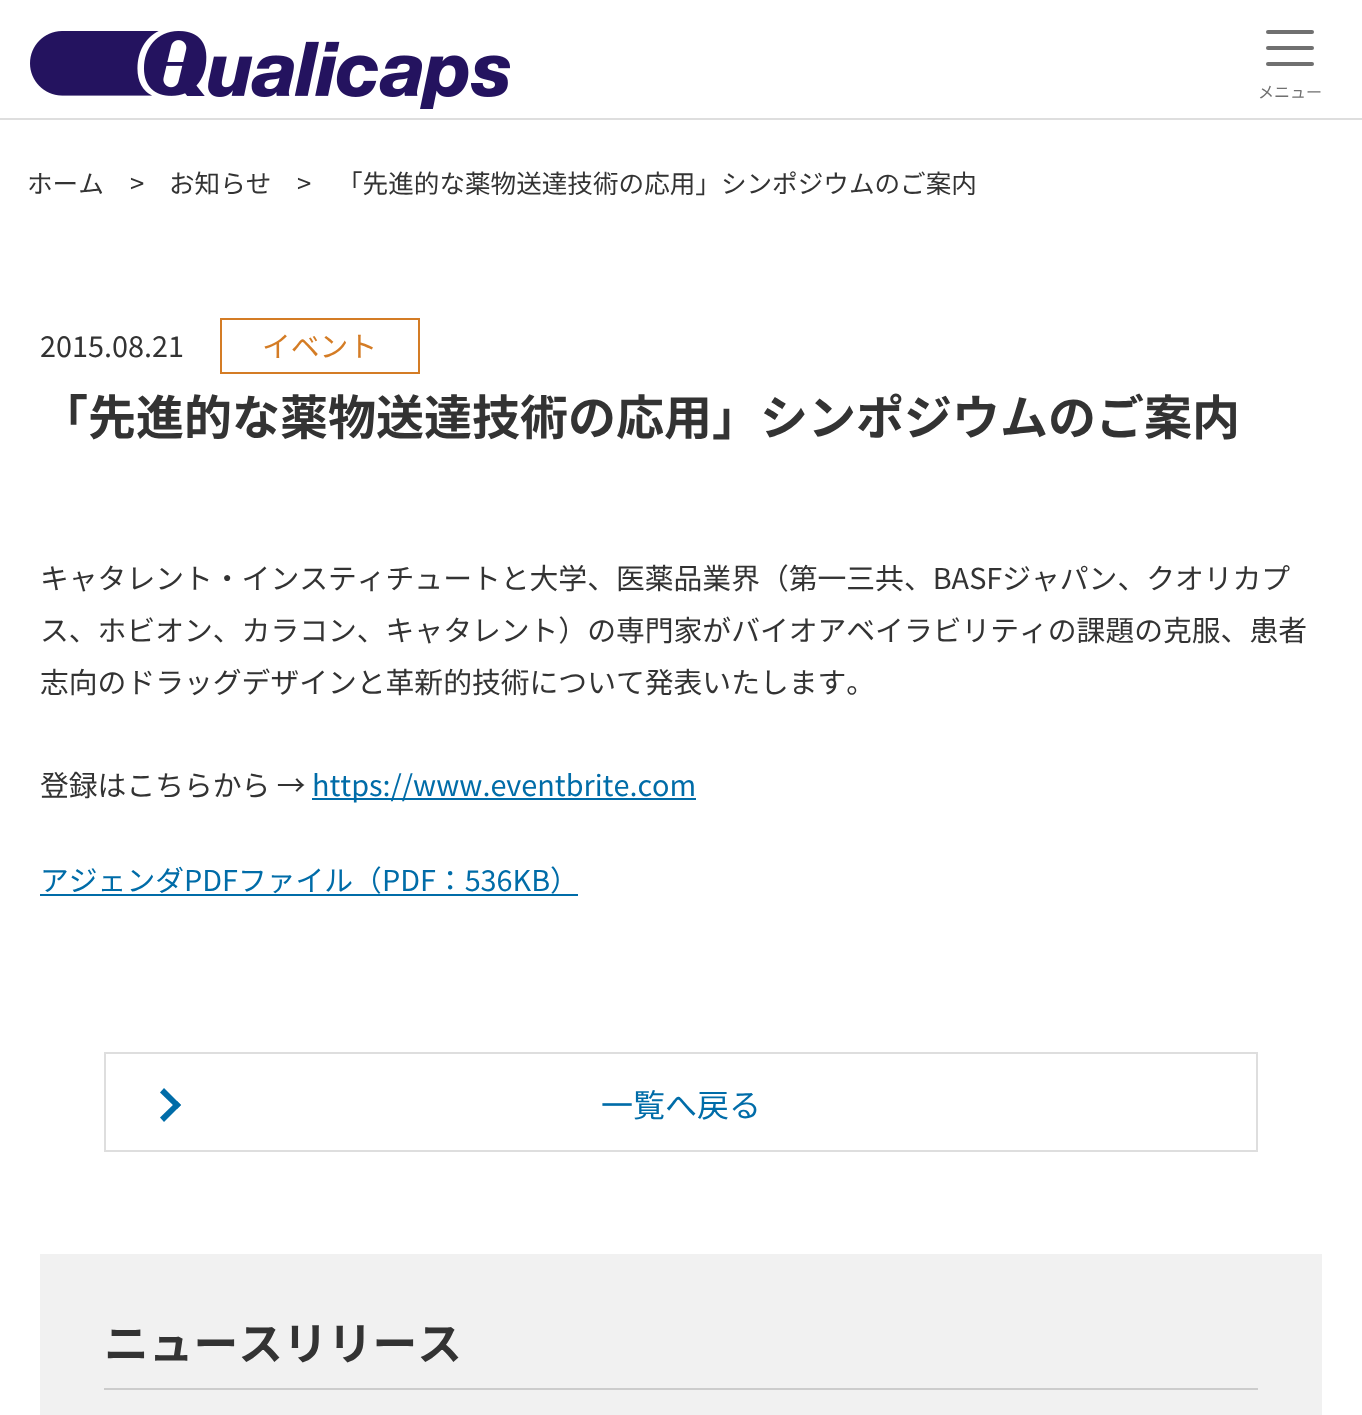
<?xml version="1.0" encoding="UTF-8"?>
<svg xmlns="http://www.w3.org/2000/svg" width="1362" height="1415">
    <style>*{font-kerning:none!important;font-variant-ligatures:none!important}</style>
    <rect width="100%" height="100%" fill="#FFFFFF"/>
    <rect x="0" y="118" width="1362" height="2" fill="#DEDEDE"/>
    <image x="30" y="31" width="480" height="78" href="img_01.png"/>
    <rect x="1266" y="30" width="48" height="4" rx="2" fill="#707070"/>
    <rect x="1266" y="46" width="48" height="4" rx="2" fill="#707070"/>
    <rect x="1266" y="62" width="48" height="4" rx="2" fill="#707070"/>
    <text x="1258" y="98" font-family="Noto Sans JP" font-size="16" fill="#707070">メニュー</text>
    <text x="27" y="193" font-family="Noto Sans JP" font-size="25.6" fill="#333333">ホーム</text>
    <text x="130" y="193" font-family="Noto Sans JP" font-size="25.6" fill="#333333">&gt;</text>
    <text x="169" y="193" font-family="Noto Sans JP" font-size="25.6" fill="#333333">お知らせ</text>
    <text x="297" y="193" font-family="Noto Sans JP" font-size="25.6" fill="#333333">&gt;</text>
    <text x="337" y="193" font-family="Noto Sans JP" font-size="25.6" fill="#333333">「先進的な薬物送達技術の応用」シンポジウムのご案内</text>
    <text x="40" y="357" font-family="Noto Sans JP" font-size="28.8" fill="#333333">2015.08.21</text>
    <rect x="221" y="319" width="198" height="54" fill="none" stroke="#D47C25" stroke-width="2"/>
    <text x="262" y="357" font-family="Noto Sans JP" font-size="28.8" fill="#D47C25">イベント</text>
    <text x="40" y="435" font-family="Noto Sans JP" font-size="48" font-weight="700" fill="#333333">「先進的な薬物送達技術の応用」シンポジウムのご案内</text>
    <text font-family="Noto Sans JP" font-size="28.8" fill="#333333">
        <tspan x="40" y="589">キャタレント・インスティチュートと大学、医薬品業界（第一三共、BASFジャパン、クオリカプ</tspan>
        <tspan x="40" y="641">ス、ホビオン、カラコン、キャタレント）の専門家がバイオアベイラビリテ</tspan>
    </text>
    <text x="1019" y="641" font-family="Noto Sans JP" font-size="28.8" fill="#333333">ィの課題の克服、患者</text>
    <text x="40" y="693" font-family="Noto Sans JP" font-size="28.8" fill="#333333">志向のドラッグデザインと革新的技術について発表いたします。</text>
    <text x="40" y="796" font-family="Noto Sans JP" font-size="28.8" fill="#333333">登録はこちらから →</text>
    <rect x="312" y="798" width="384" height="2" fill="#006CA8"/>
    <text x="312" y="796" font-family="Noto Sans JP" font-size="28.8" fill="#006CA8">https://www.eventbrite.com</text>
    <text x="40" y="891" font-family="Noto Sans JP" font-size="28.8" fill="#006CA8">アジェンダPDFファイル（PDF：536KB）</text>
    <rect x="40" y="894" width="538" height="2" fill="#006CA8"/>
    <rect x="105" y="1053" width="1152" height="98" fill="none" stroke="#DEDEDE" stroke-width="2"/>
    <path d="M 164 1088 L 181 1105 L 177 1109 L 160 1092.5 Z" fill="#006CA8"/>
    <path d="M 177 1101 L 181 1105 L 164 1122 L 160 1117.5 Z" fill="#006CA8"/>
    <text x="601" y="1117" font-family="Noto Sans JP" font-size="32" fill="#006CA8">一覧へ戻る</text>
    <rect x="40" y="1254" width="1282" height="161" fill="#F1F1F1"/>
    <text x="104" y="1360" font-family="Noto Sans JP" font-size="44.75" font-weight="700" fill="#333333">ニュースリリース</text>
    <rect x="104" y="1388" width="1154" height="2" fill="#CCCCCC"/>
</svg>
